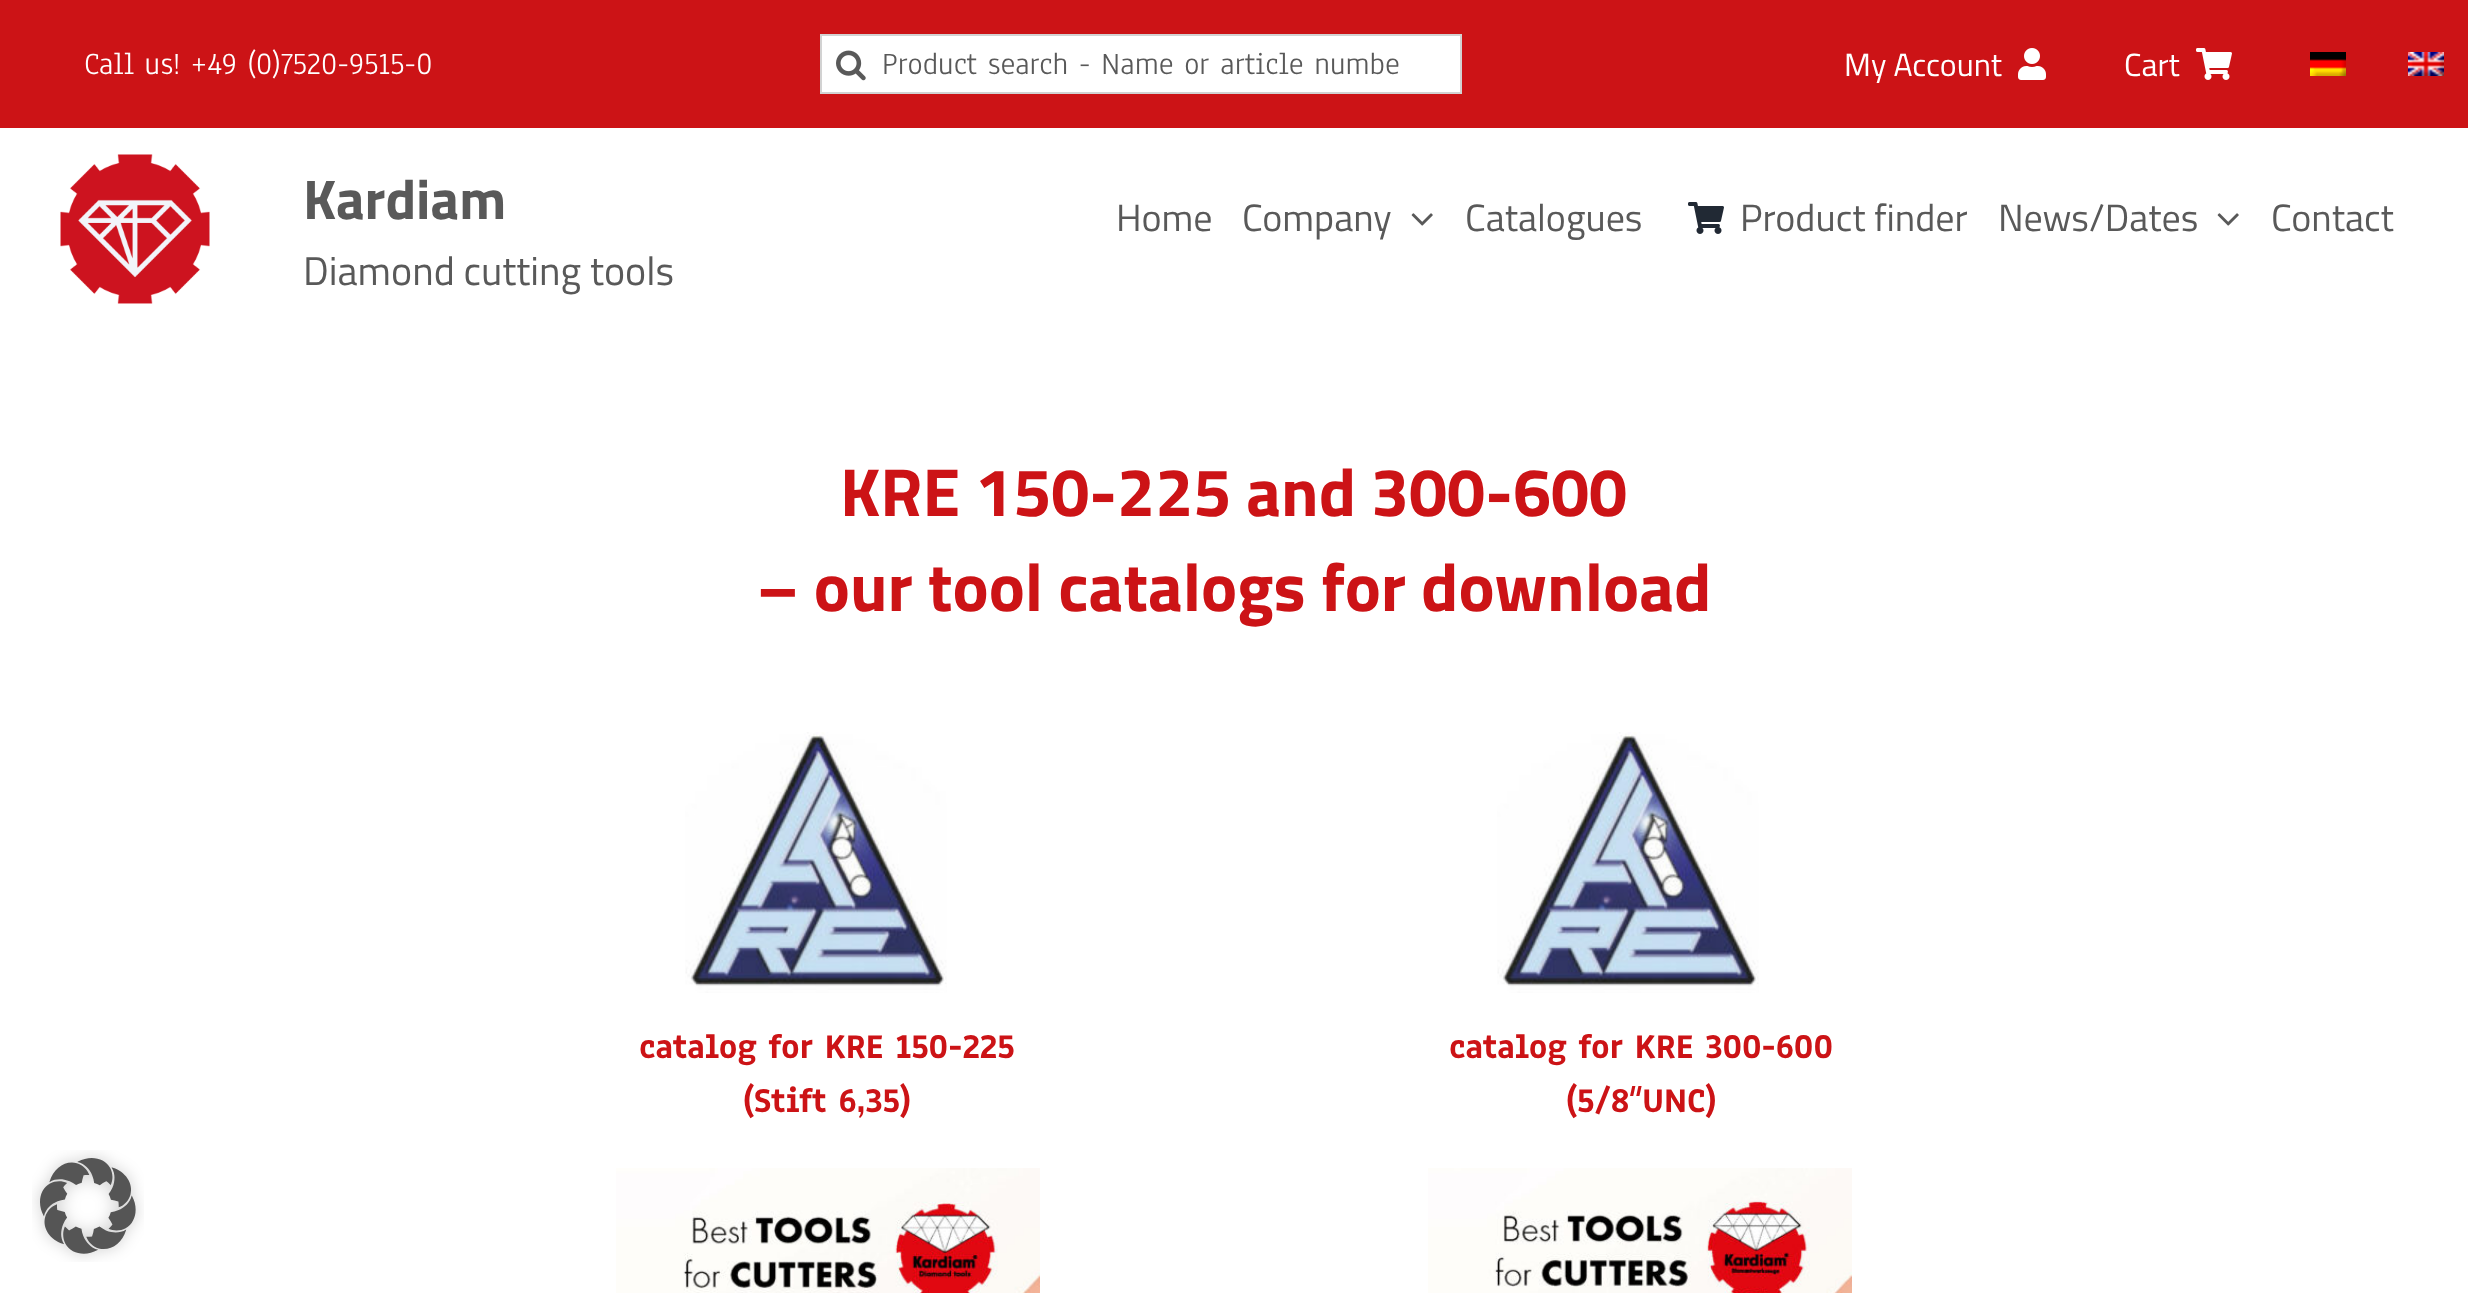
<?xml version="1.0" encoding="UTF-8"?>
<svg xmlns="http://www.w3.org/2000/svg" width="2468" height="1293">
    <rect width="100%" height="100%" fill="#FFFFFF"/>
    <rect x="0" y="0" width="2468" height="128" fill="#CC1316"/>
    <text x="84" y="74" font-family="Anaheim" font-size="32" fill="#FFFFFF">Call us! +49 (0)7520-9515-0</text>
    <rect x="821" y="35" width="640" height="58" fill="#FFFFFF" stroke="#D2D2D2" stroke-width="2"/>
    <image x="836" y="50" width="30" height="31" href="img_01.png"/>
    <text x="882" y="74" font-family="Anaheim" font-size="32" fill="#595959">Product search - Name or article numbe</text>
    <text x="1844" y="76" font-family="Titillium Web" font-size="32" fill="#FFFFFF">My Account</text>
    <image x="2018" y="48" width="28" height="32" href="img_02.png"/>
    <text x="2124" y="76" font-family="Titillium Web" font-size="32" fill="#FFFFFF">Cart</text>
    <image x="2196" y="48" width="36" height="32" href="img_03.png"/>
    <image x="2310" y="52" width="36" height="24" href="img_04.png"/>
    <image x="2408" y="52" width="36" height="24" href="img_05.png"/>
    <image x="60" y="154" width="150" height="150" href="img_06.png"/>
    <text x="303" y="219" font-family="Titillium Web" font-size="56" font-weight="700" fill="#595959">Kardiam</text>
    <text x="303" y="285" font-family="Titillium Web" font-size="40" fill="#595959">Diamond cutting tools</text>
    <text x="1116" y="231" font-family="Titillium Web" font-size="38" fill="#595959">Home</text>
    <text x="1242" y="231" font-family="Titillium Web" font-size="38" fill="#595959">Company</text>
    <image x="1411" y="213" width="22" height="13" href="img_07.png"/>
    <text x="1465" y="231" font-family="Titillium Web" font-size="38" fill="#595959">Catalogues</text>
    <image x="1688" y="202" width="36" height="32" href="img_08.png"/>
    <text x="1740" y="231" font-family="Titillium Web" font-size="38" fill="#595959">Product finder</text>
    <text x="1998" y="231" font-family="Titillium Web" font-size="38" fill="#595959">News/Dates</text>
    <image x="2217" y="213" width="22" height="13" href="img_07.png"/>
    <text x="2271" y="231" font-family="Titillium Web" font-size="38" fill="#595959">Contact</text>
    <text x="840" y="516" font-family="Titillium Web" font-size="68" font-weight="700" fill="#CC1316">KRE 150-225 and 300-600</text>
    <text x="757" y="611" font-family="Titillium Web" font-size="68" font-weight="700" fill="#CC1316">– our tool catalogs for download</text>
    <image x="685" y="732" width="262" height="261" href="img_09.png"/>
    <text x="639" y="1058" font-family="Anaheim" font-size="36" font-weight="700" fill="#CC1316">catalog for KRE 150-225</text>
    <text x="743" y="1112" font-family="Anaheim" font-size="36" font-weight="700" fill="#CC1316">(Stift 6,35)</text>
    <image x="616" y="1168" width="424" height="125" href="img_10.png"/>
    <image x="1497" y="732" width="262" height="261" href="img_11.png"/>
    <text x="1449" y="1058" font-family="Anaheim" font-size="36" font-weight="700" fill="#CC1316">catalog for KRE 300-600</text>
    <text x="1566" y="1112" font-family="Anaheim" font-size="36" font-weight="700" fill="#CC1316">(5/8″UNC)</text>
    <image x="1428" y="1168" width="424" height="125" href="img_12.png"/>
    <image x="32" y="1150" width="112" height="112" href="img_13.png"/>
</svg>
